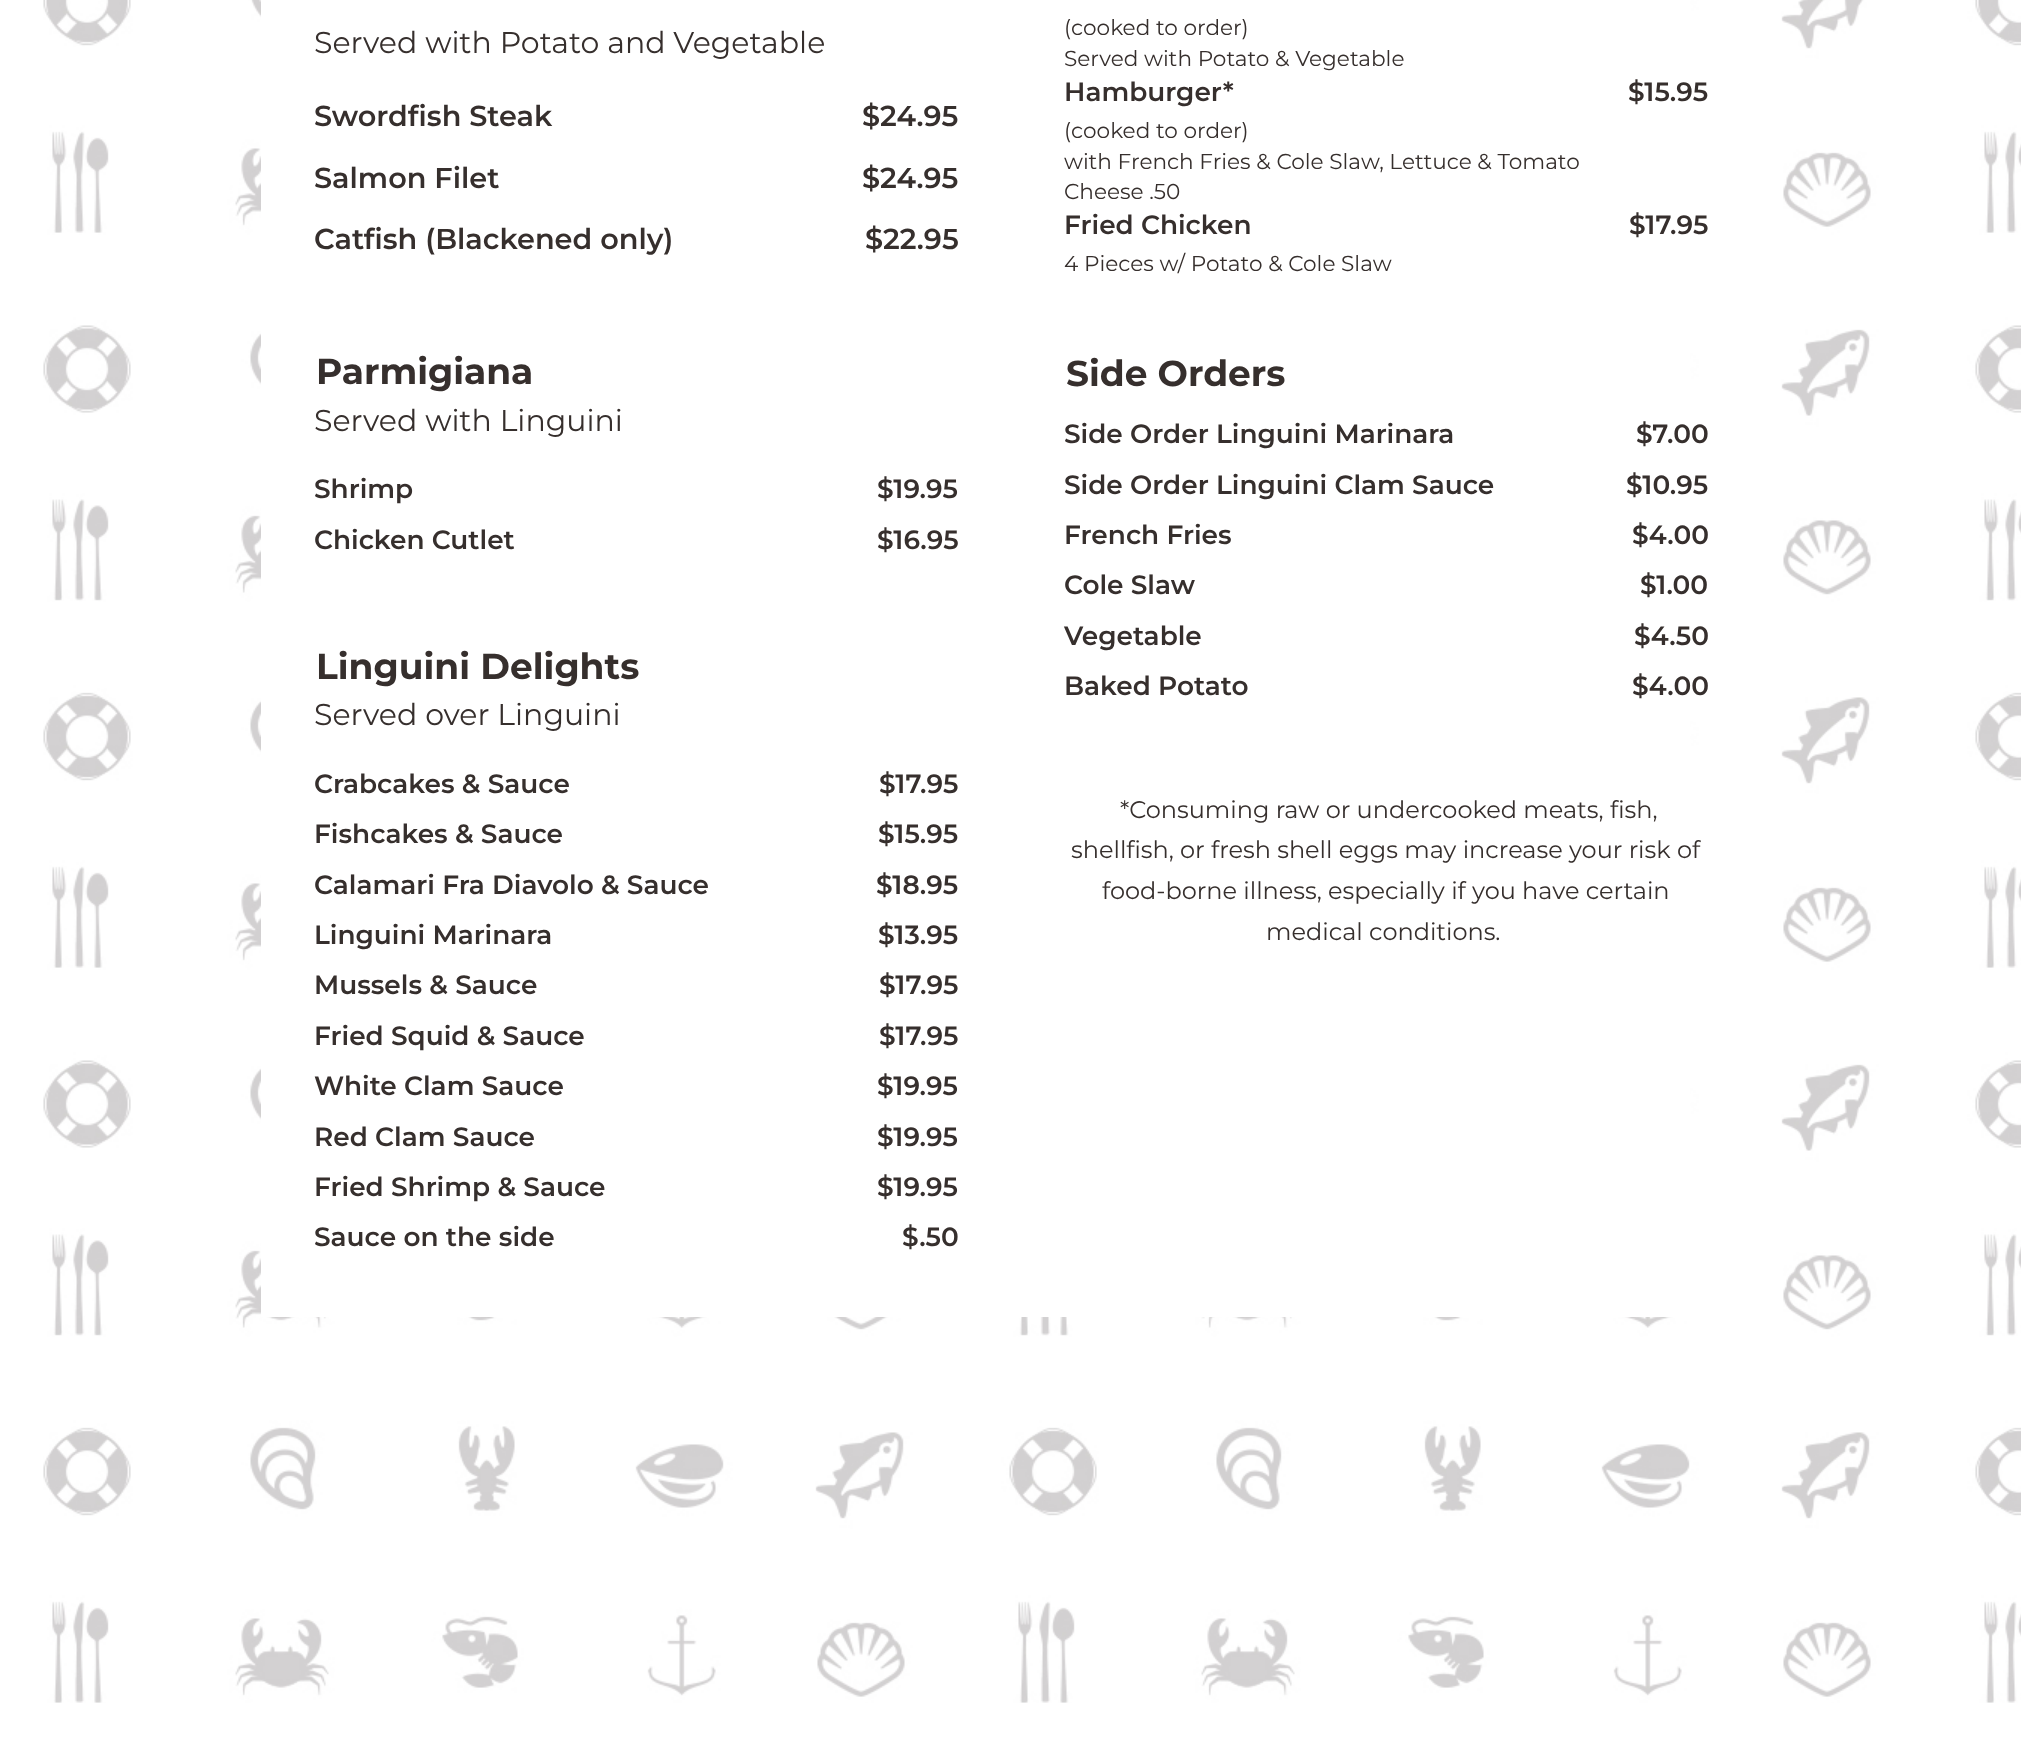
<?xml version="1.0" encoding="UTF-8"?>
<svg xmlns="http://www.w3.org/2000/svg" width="2021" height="1760">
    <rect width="100%" height="100%" fill="#FFFFFF"/>
    <image x="43" y="0" width="1978" height="1703" href="img_01.png"/>
    <rect x="261" y="0" width="1429" height="1317" fill="#FFFFFF"/>
    <text x="314" y="53" font-family="Montserrat" font-size="30" fill="#362F2D">Served with Potato and Vegetable</text>
    <text x="314" y="126" font-family="Montserrat" font-size="28.75" font-weight="600" fill="#362F2D">Swordfish Steak</text>
    <text x="862" y="126" font-family="Montserrat" font-size="28.75" font-weight="600" fill="#362F2D">$24.95</text>
    <text x="314" y="188" font-family="Montserrat" font-size="28.75" font-weight="600" fill="#362F2D">Salmon Filet</text>
    <text x="862" y="188" font-family="Montserrat" font-size="28.75" font-weight="600" fill="#362F2D">$24.95</text>
    <text x="314" y="249" font-family="Montserrat" font-size="28.75" font-weight="600" fill="#362F2D">Catfish (Blackened only)</text>
    <text x="865" y="249" font-family="Montserrat" font-size="28.75" font-weight="600" fill="#362F2D">$22.95</text>
    <text x="316" y="384" font-family="Montserrat" font-size="36" font-weight="700" fill="#362F2D">Parmigiana</text>
    <text x="314" y="431" font-family="Montserrat" font-size="30" fill="#362F2D">Served with Linguini</text>
    <text x="314" y="498" font-family="Montserrat" font-size="26.4" font-weight="600" fill="#362F2D">Shrimp</text>
    <text x="877" y="498" font-family="Montserrat" font-size="26.4" font-weight="600" fill="#362F2D">$19.95</text>
    <text x="314" y="549" font-family="Montserrat" font-size="26.4" font-weight="600" fill="#362F2D">Chicken Cutlet</text>
    <text x="877" y="549" font-family="Montserrat" font-size="26.4" font-weight="600" fill="#362F2D">$16.95</text>
    <text x="316" y="679" font-family="Montserrat" font-size="36" font-weight="700" fill="#362F2D">Linguini Delights</text>
    <text x="314" y="725" font-family="Montserrat" font-size="30" fill="#362F2D">Served over Linguini</text>
    <text x="314" y="793" font-family="Montserrat" font-size="26.4" font-weight="600" fill="#362F2D">Crabcakes &amp; Sauce</text>
    <text x="879" y="793" font-family="Montserrat" font-size="26.4" font-weight="600" fill="#362F2D">$17.95</text>
    <text x="314" y="843" font-family="Montserrat" font-size="26.4" font-weight="600" fill="#362F2D">Fishcakes &amp; Sauce</text>
    <text x="878" y="843" font-family="Montserrat" font-size="26.4" font-weight="600" fill="#362F2D">$15.95</text>
    <text x="314" y="894" font-family="Montserrat" font-size="26.4" font-weight="600" fill="#362F2D">Calamari Fra Diavolo &amp; Sauce</text>
    <text x="876" y="894" font-family="Montserrat" font-size="26.4" font-weight="600" fill="#362F2D">$18.95</text>
    <text x="314" y="944" font-family="Montserrat" font-size="26.4" font-weight="600" fill="#362F2D">Linguini Marinara</text>
    <text x="878" y="944" font-family="Montserrat" font-size="26.4" font-weight="600" fill="#362F2D">$13.95</text>
    <text x="314" y="994" font-family="Montserrat" font-size="26.4" font-weight="600" fill="#362F2D">Mussels &amp; Sauce</text>
    <text x="879" y="994" font-family="Montserrat" font-size="26.4" font-weight="600" fill="#362F2D">$17.95</text>
    <text x="314" y="1045" font-family="Montserrat" font-size="26.4" font-weight="600" fill="#362F2D">Fried Squid &amp; Sauce</text>
    <text x="879" y="1045" font-family="Montserrat" font-size="26.4" font-weight="600" fill="#362F2D">$17.95</text>
    <text x="314" y="1095" font-family="Montserrat" font-size="26.4" font-weight="600" fill="#362F2D">White Clam Sauce</text>
    <text x="877" y="1095" font-family="Montserrat" font-size="26.4" font-weight="600" fill="#362F2D">$19.95</text>
    <text x="314" y="1146" font-family="Montserrat" font-size="26.4" font-weight="600" fill="#362F2D">Red Clam Sauce</text>
    <text x="877" y="1146" font-family="Montserrat" font-size="26.4" font-weight="600" fill="#362F2D">$19.95</text>
    <text x="314" y="1196" font-family="Montserrat" font-size="26.4" font-weight="600" fill="#362F2D">Fried Shrimp &amp; Sauce</text>
    <text x="877" y="1196" font-family="Montserrat" font-size="26.4" font-weight="600" fill="#362F2D">$19.95</text>
    <text x="314" y="1246" font-family="Montserrat" font-size="26.4" font-weight="600" fill="#362F2D">Sauce on the side</text>
    <text x="902" y="1246" font-family="Montserrat" font-size="26.4" font-weight="600" fill="#362F2D">$.50</text>
    <text font-family="Montserrat" font-size="21.6" fill="#362F2D">
        <tspan x="1064" y="35">(cooked to order)</tspan>
        <tspan x="1064" y="66">Served with Potato &amp; Vegetable</tspan>
    </text>
    <text x="1064" y="101" font-family="Montserrat" font-size="26.4" font-weight="600" fill="#362F2D">Hamburger*</text>
    <text x="1628" y="101" font-family="Montserrat" font-size="26.4" font-weight="600" fill="#362F2D">$15.95</text>
    <text font-family="Montserrat" font-size="21.6" fill="#362F2D">
        <tspan x="1064" y="138">(cooked to order)</tspan>
        <tspan x="1064" y="169">with French Fries &amp; Cole Slaw, Lettuce &amp; Tomato</tspan>
        <tspan x="1064" y="199">Cheese .50</tspan>
    </text>
    <text x="1064" y="234" font-family="Montserrat" font-size="26.4" font-weight="600" fill="#362F2D">Fried Chicken</text>
    <text x="1629" y="234" font-family="Montserrat" font-size="26.4" font-weight="600" fill="#362F2D">$17.95</text>
    <text x="1064" y="271" font-family="Montserrat" font-size="21.6" fill="#362F2D">4 Pieces w/ Potato &amp; Cole Slaw</text>
    <text x="1066" y="386" font-family="Montserrat" font-size="36" font-weight="700" fill="#362F2D">Side Orders</text>
    <text x="1064" y="443" font-family="Montserrat" font-size="26.4" font-weight="600" fill="#362F2D">Side Order Linguini Marinara</text>
    <text x="1636" y="443" font-family="Montserrat" font-size="26.4" font-weight="600" fill="#362F2D">$7.00</text>
    <text x="1064" y="494" font-family="Montserrat" font-size="26.4" font-weight="600" fill="#362F2D">Side Order Linguini Clam Sauce</text>
    <text x="1626" y="494" font-family="Montserrat" font-size="26.4" font-weight="600" fill="#362F2D">$10.95</text>
    <text x="1064" y="544" font-family="Montserrat" font-size="26.4" font-weight="600" fill="#362F2D">French Fries</text>
    <text x="1632" y="544" font-family="Montserrat" font-size="26.4" font-weight="600" fill="#362F2D">$4.00</text>
    <text x="1064" y="594" font-family="Montserrat" font-size="26.4" font-weight="600" fill="#362F2D">Cole Slaw</text>
    <text x="1640" y="594" font-family="Montserrat" font-size="26.4" font-weight="600" fill="#362F2D">$1.00</text>
    <text x="1064" y="645" font-family="Montserrat" font-size="26.4" font-weight="600" fill="#362F2D">Vegetable</text>
    <text x="1634" y="645" font-family="Montserrat" font-size="26.4" font-weight="600" fill="#362F2D">$4.50</text>
    <text x="1064" y="695" font-family="Montserrat" font-size="26.4" font-weight="600" fill="#362F2D">Baked Potato</text>
    <text x="1632" y="695" font-family="Montserrat" font-size="26.4" font-weight="600" fill="#362F2D">$4.00</text>
    <text x="1120" y="818" font-family="Montserrat" font-size="24" fill="#362F2D">*Consuming raw or undercooked meats, fish,</text>
    <text x="1071" y="858" font-family="Montserrat" font-size="24" fill="#362F2D">shellfish, or fresh shell eggs may increase your risk of</text>
    <text x="1102" y="899" font-family="Montserrat" font-size="24" fill="#362F2D">food-borne illness, especially if you have certain</text>
    <text x="1266" y="940" font-family="Montserrat" font-size="24" fill="#362F2D">medical conditions.</text>
</svg>
